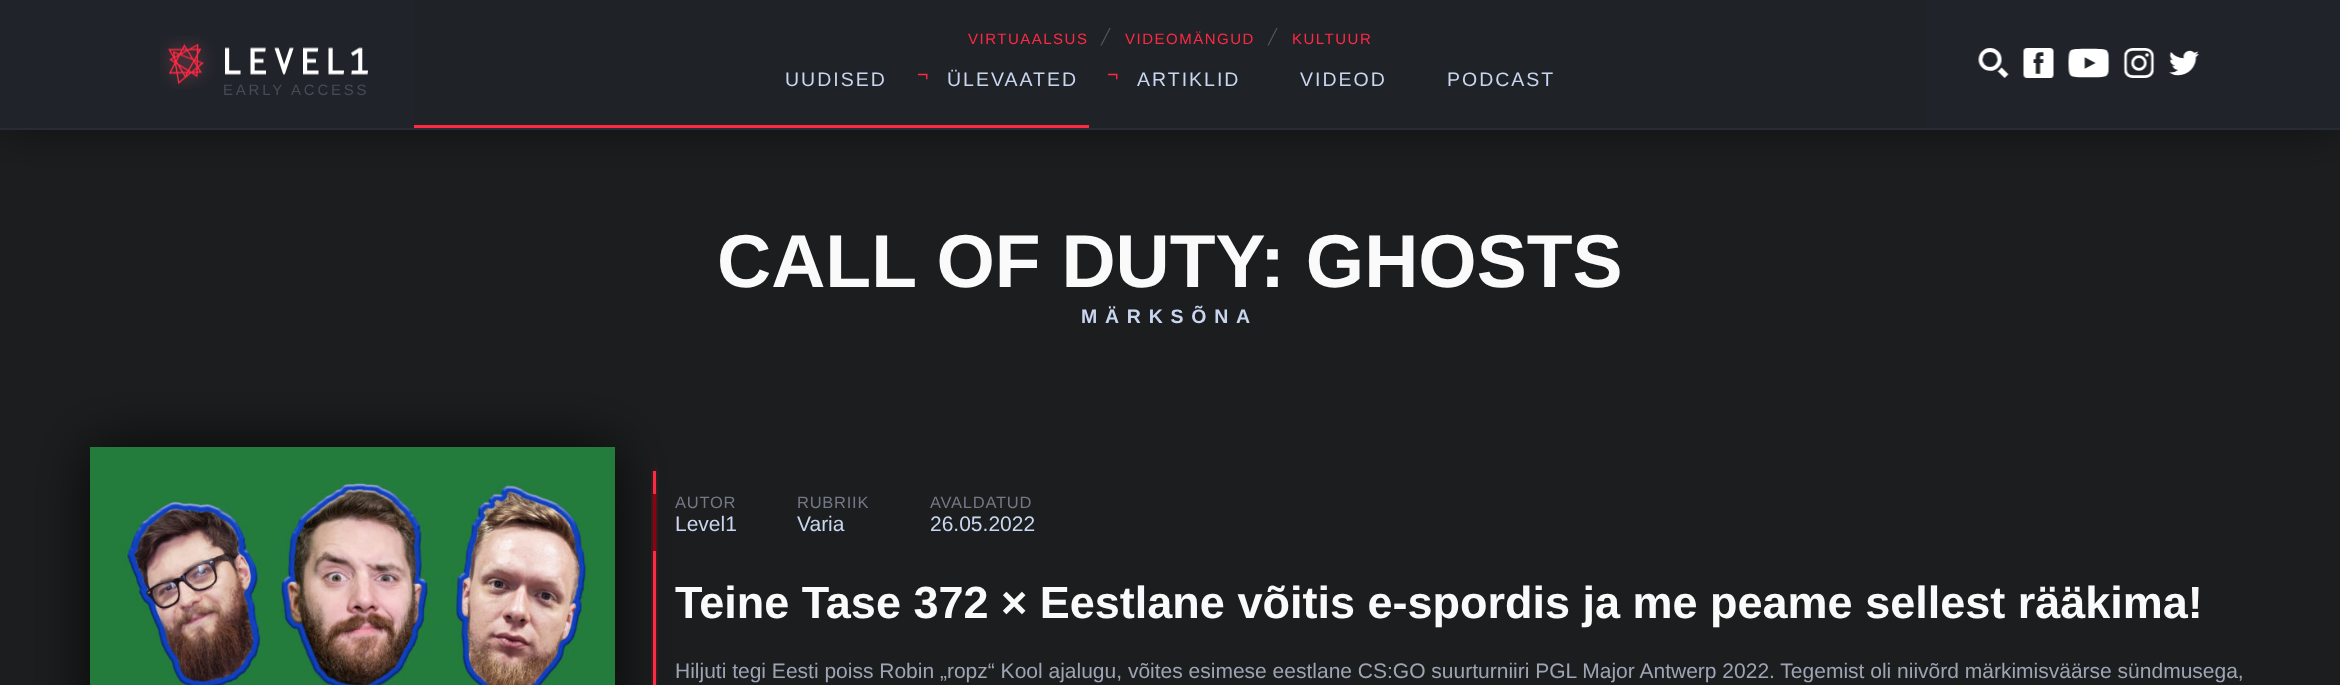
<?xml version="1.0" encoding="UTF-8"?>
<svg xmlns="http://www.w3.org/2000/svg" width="2340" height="685">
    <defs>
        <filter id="blur1" x="-50%" y="-200%" width="200%" height="500%"><feGaussianBlur stdDeviation="22.5"/></filter>
        <filter id="blur2" x="-50%" y="-200%" width="200%" height="500%"><feGaussianBlur stdDeviation="30"/></filter>
        <filter id="blur3" x="-50%" y="-200%" width="200%" height="500%"><feGaussianBlur stdDeviation="10.5"/></filter>
    </defs>
    <rect width="100%" height="100%" fill="#1C1D1E"/>
    <rect x="0" y="0" width="2340" height="129" fill="#000000" fill-opacity="0.5" filter="url(#blur1)"/>
    <rect x="0" y="0" width="414" height="128" fill="#20242A"/>
    <rect x="1926" y="0" width="414" height="128" fill="#20242A"/>
    <rect x="0" y="128" width="2340" height="2" fill="#272B33"/>
    <rect x="414" y="0" width="1512" height="128" fill="#1F2328"/>
    <text x="968" y="44" font-family="Liberation Sans" font-size="15" letter-spacing="1.5" fill="#FF2942">VIRTUAALSUS</text>
    <text x="1101" y="42" font-family="DejaVu Sans" font-size="15" letter-spacing="1.5" fill="#515760">╱</text>
    <text x="1125" y="44" font-family="Liberation Sans" font-size="15" letter-spacing="1.5" fill="#FF2942">VIDEOMÄNGUD</text>
    <text x="1268" y="42" font-family="DejaVu Sans" font-size="15" letter-spacing="1.5" fill="#515760">╱</text>
    <text x="1292" y="44" font-family="Liberation Sans" font-size="15" letter-spacing="1.5" fill="#FF2942">KULTUUR</text>
    <text x="785" y="86" font-family="Liberation Sans" font-size="19.5" letter-spacing="2" fill="#C9D6EF">UUDISED</text>
    <text x="917" y="81" font-family="Liberation Sans" font-size="19.5" letter-spacing="2" fill="#FF2942">¬</text>
    <text x="947" y="86" font-family="Liberation Sans" font-size="19.5" letter-spacing="2" fill="#C9D6EF">ÜLEVAATED</text>
    <text x="1107" y="81" font-family="Liberation Sans" font-size="19.5" letter-spacing="2" fill="#FF2942">¬</text>
    <text x="1137" y="86" font-family="Liberation Sans" font-size="19.5" letter-spacing="2" fill="#C9D6EF">ARTIKLID</text>
    <text x="1300" y="86" font-family="Liberation Sans" font-size="19.5" letter-spacing="2" fill="#C9D6EF">VIDEOD</text>
    <text x="1447" y="86" font-family="Liberation Sans" font-size="19.5" letter-spacing="2" fill="#C9D6EF">PODCAST</text>
    <image x="1978" y="48" width="31" height="30" href="img_01.png"/>
    <image x="2023" y="48" width="31" height="30" href="img_02.png"/>
    <image x="2068" y="48" width="42" height="30" href="img_03.png"/>
    <image x="2123" y="48" width="32" height="30" href="img_04.png"/>
    <image x="2169" y="50" width="30" height="26" href="img_05.png"/>
    <image x="160" y="36" width="208" height="53" href="img_06.png"/>
    <text x="223" y="95" font-family="Liberation Sans" font-size="15" letter-spacing="2.8" fill="#464B54">EARLY ACCESS</text>
    <rect x="414" y="125" width="675" height="3" fill="#FF2942"/>
    <text x="717" y="287" font-family="Liberation Sans" font-size="75" font-weight="700" fill="#FAFAFA">CALL OF DUTY: GHOSTS</text>
    <text x="1081" y="323" font-family="Liberation Sans" font-size="19.5" font-weight="700" letter-spacing="7.75" fill="#C9D6EF">MÄRKSÕNA</text>
    <rect x="90" y="447" width="525" height="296" fill="#000000" fill-opacity="0.8" filter="url(#blur2)"/>
    <image x="90" y="447" width="525" height="238" href="img_07.png"/>
    <rect x="653" y="471" width="3" height="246" fill="#FF2942" filter="url(#blur3)"/>
    <rect x="653" y="471" width="3" height="214" fill="#FF2942"/>
    <rect x="653" y="494" width="3" height="57" fill="#8F0011"/>
    <text x="675" y="508" font-family="Liberation Sans" font-size="16.5" letter-spacing="0.75" fill="#727986">AUTOR</text>
    <text x="675" y="531" font-family="Liberation Sans" font-size="21" fill="#C9D6EF">Level1</text>
    <text x="797" y="508" font-family="Liberation Sans" font-size="16.5" letter-spacing="0.75" fill="#727986">RUBRIIK</text>
    <text x="797" y="531" font-family="Liberation Sans" font-size="21" fill="#C9D6EF">Varia</text>
    <text x="930" y="508" font-family="Liberation Sans" font-size="16.5" letter-spacing="0.75" fill="#727986">AVALDATUD</text>
    <text x="930" y="531" font-family="Liberation Sans" font-size="21" fill="#C9D6EF">26.05.2022</text>
    <text x="675" y="618" font-family="Liberation Sans" font-size="45" font-weight="700" fill="#FAFAFA">Teine Tase 372 × Eestlane võitis e-spordis ja me peame sellest rääkima!</text>
    <text x="675" y="678" font-family="Liberation Sans" font-size="21" fill="#9DA5B5">Hiljuti tegi Eesti poiss Robin „ropz“ Kool ajalugu, võites esimese eestlane CS:GO suurturniiri PGL Major Antwerp 2022. Tegemist oli niivõrd märkimisväärse sündmusega,</text>
</svg>
